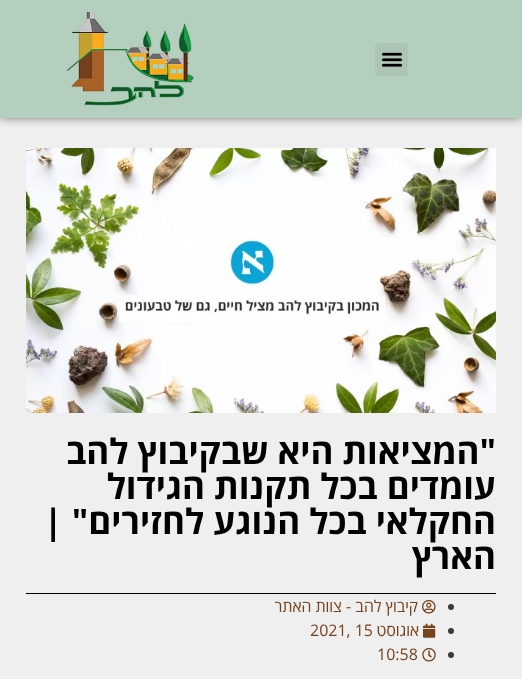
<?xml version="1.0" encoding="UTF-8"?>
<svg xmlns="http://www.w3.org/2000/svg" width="522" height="679">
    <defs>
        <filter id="blur1" x="-50%" y="-200%" width="200%" height="500%"><feGaussianBlur stdDeviation="5"/></filter>
    </defs>
    <rect width="100%" height="100%" fill="#EFEFEF"/>
    <rect x="0" y="0" width="522" height="118" fill="#000000" fill-opacity="0.5" filter="url(#blur1)"/>
    <rect x="0" y="0" width="522" height="118" fill="#B5CFBE"/>
    <rect x="375" y="43" width="33" height="33" rx="3" fill="#ACC5B5"/>
    <image x="381" y="52" width="22" height="15" href="img_01.png"/>
    <image x="66" y="12" width="128" height="94" href="img_02.png"/>
    <image x="26" y="148" width="470" height="265" href="img_03.png"/>
    <text font-family="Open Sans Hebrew" font-size="35" font-weight="700" direction="rtl" fill="#000000">
        <tspan x="496" y="464">"המציאות היא שבקיבוץ להב</tspan>
        <tspan x="496" y="499">עומדים בכל תקנות הגידול</tspan>
        <tspan x="496" y="534">החקלאי בכל הנוגע לחזירים" |</tspan>
        <tspan x="496" y="569">הארץ</tspan>
    </text>
    <rect x="26" y="593" width="470" height="1" fill="#000000"/>
    <circle cx="451" cy="607" r="3" fill="#3A3A3A"/>
    <image x="422" y="600" width="14" height="14" href="img_04.png"/>
    <text x="418" y="612" font-family="Open Sans Hebrew" font-size="16" direction="rtl" fill="#76431C">קיבוץ להב - צוות האתר</text>
    <circle cx="451" cy="631" r="3" fill="#3A3A3A"/>
    <image x="423" y="623" width="13" height="15" href="img_05.png"/>
    <text x="419" y="636" font-family="Open Sans Hebrew" font-size="16" direction="rtl" fill="#76431C">אוגוסט</text>
    <text x="310" y="636" font-family="Open Sans Hebrew" font-size="16" fill="#76431C">2021, 15</text>
    <circle cx="451" cy="655" r="3" fill="#3A3A3A"/>
    <image x="422" y="648" width="14" height="14" href="img_06.png"/>
    <text x="377" y="660" font-family="Open Sans Hebrew" font-size="16" fill="#76431C">10:58</text>
</svg>
